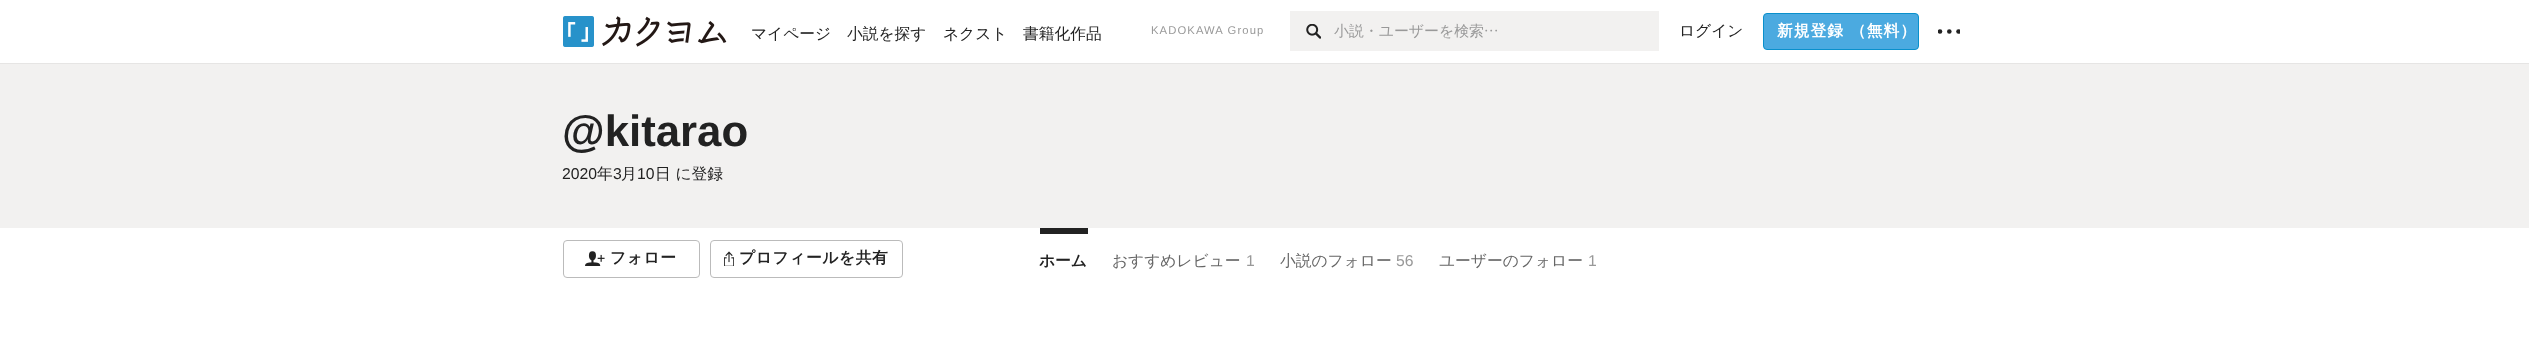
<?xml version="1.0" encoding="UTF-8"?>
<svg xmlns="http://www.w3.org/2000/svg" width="2529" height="351">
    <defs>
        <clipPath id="clip1"><rect x="1938" y="20" width="22" height="23"/></clipPath>
    </defs>
    <rect width="100%" height="100%" fill="#FFFFFF"/>
    <image x="563" y="16" width="164" height="31" href="img_01.png"/>
    <text x="751" y="39" font-family="WenQuanYi Zen Hei" font-size="15.75" font-weight="500" fill="#222222">マイページ</text>
    <text x="847" y="39" font-family="WenQuanYi Zen Hei" font-size="15.75" font-weight="500" fill="#222222">小説を探す</text>
    <text x="943" y="39" font-family="WenQuanYi Zen Hei" font-size="15.75" font-weight="500" fill="#222222">ネクスト</text>
    <text x="1023" y="39" font-family="WenQuanYi Zen Hei" font-size="15.75" font-weight="500" fill="#222222">書籍化作品</text>
    <text x="1151" y="34" font-family="Liberation Sans" font-size="11.25" letter-spacing="1.1" fill="#999999">KADOKAWA Group</text>
    <rect x="1290" y="11" width="369" height="40" fill="#F2F1F0"/>
    <image x="1306" y="24" width="15" height="15" href="img_02.png"/>
    <text x="1334" y="36" font-family="WenQuanYi Zen Hei" font-size="14.9" font-weight="500" fill="#999999">小説・ユーザーを検索</text>
    <image x="1485" y="29" width="12" height="3" href="img_03.png"/>
    <text x="1679" y="36" font-family="WenQuanYi Zen Hei" font-size="15.75" font-weight="500" fill="#222222">ログイン</text>
    <rect x="1763.5" y="13.5" width="155" height="36" rx="3.5" fill="#4BAAE0" stroke="#0990CC"/>
    <text x="1777" y="36" font-family="WenQuanYi Zen Hei" font-size="15.75" font-weight="700" letter-spacing="1" fill="#FFFFFF">新規登録</text>
    <text x="1850" y="36" font-family="WenQuanYi Zen Hei" font-size="15.75" font-weight="700" letter-spacing="1" fill="#FFFFFF">（無料）</text>
    <g clip-path="url(#clip1)">
        <circle cx="1940" cy="31.5" r="2.3" fill="#222222"/>
    </g>
    <circle cx="1949.3" cy="31.5" r="2.3" fill="#222222"/>
    <g clip-path="url(#clip1)">
        <circle cx="1958.5" cy="31.5" r="2.3" fill="#222222"/>
    </g>
    <rect x="0" y="64" width="2529" height="164" fill="#F2F1F0"/>
    <rect x="0" y="63" width="2529" height="1" fill="#E6E5E4"/>
    <text x="562" y="146" font-family="Liberation Sans" font-size="43.75" font-weight="700" fill="#222222">@kitarao</text>
    <text x="562" y="179" font-family="Liberation Sans" font-size="15.75" fill="#222222">2020</text>
    <text x="597" y="179" font-family="WenQuanYi Zen Hei" font-size="15.75" font-weight="500" fill="#222222">年</text>
    <text x="613" y="179" font-family="Liberation Sans" font-size="15.75" fill="#222222">3</text>
    <text x="621" y="179" font-family="WenQuanYi Zen Hei" font-size="15.75" font-weight="500" fill="#222222">月</text>
    <text x="637" y="179" font-family="Liberation Sans" font-size="15.75" fill="#222222">10</text>
    <text x="655" y="179" font-family="WenQuanYi Zen Hei" font-size="15.75" font-weight="500" fill="#222222">日 に登録</text>
    <rect x="563.5" y="240.5" width="136" height="37" rx="3.5" fill="none" stroke="#BBBBBB"/>
    <image x="585" y="251" width="20" height="15" href="img_04.png"/>
    <text x="610" y="263" font-family="WenQuanYi Zen Hei" font-size="15.75" font-weight="700" letter-spacing="0.6" fill="#222222">フォロー</text>
    <rect x="710.5" y="240.5" width="192" height="37" rx="3.5" fill="none" stroke="#BBBBBB"/>
    <image x="724" y="251" width="10" height="15" href="img_05.png"/>
    <text x="739" y="263" font-family="WenQuanYi Zen Hei" font-size="15.75" font-weight="700" letter-spacing="0.6" fill="#222222">プロフィールを共有</text>
    <rect x="1040" y="228" width="48" height="6" fill="#222222"/>
    <text x="1039" y="266" font-family="WenQuanYi Zen Hei" font-size="15.75" font-weight="700" fill="#222222">ホーム</text>
    <text x="1112" y="266" font-family="WenQuanYi Zen Hei" font-size="15.75" font-weight="500" fill="#666666">おすすめレビュー</text>
    <text x="1246" y="266" font-family="Liberation Sans" font-size="15.75" fill="#999999">1</text>
    <text x="1280" y="266" font-family="WenQuanYi Zen Hei" font-size="15.75" font-weight="500" fill="#666666">小説のフォロー</text>
    <text x="1396" y="266" font-family="Liberation Sans" font-size="15.75" fill="#999999">56</text>
    <text x="1439" y="266" font-family="WenQuanYi Zen Hei" font-size="15.75" font-weight="500" fill="#666666">ユーザーのフォロー</text>
    <text x="1588" y="266" font-family="Liberation Sans" font-size="15.75" fill="#999999">1</text>
</svg>
